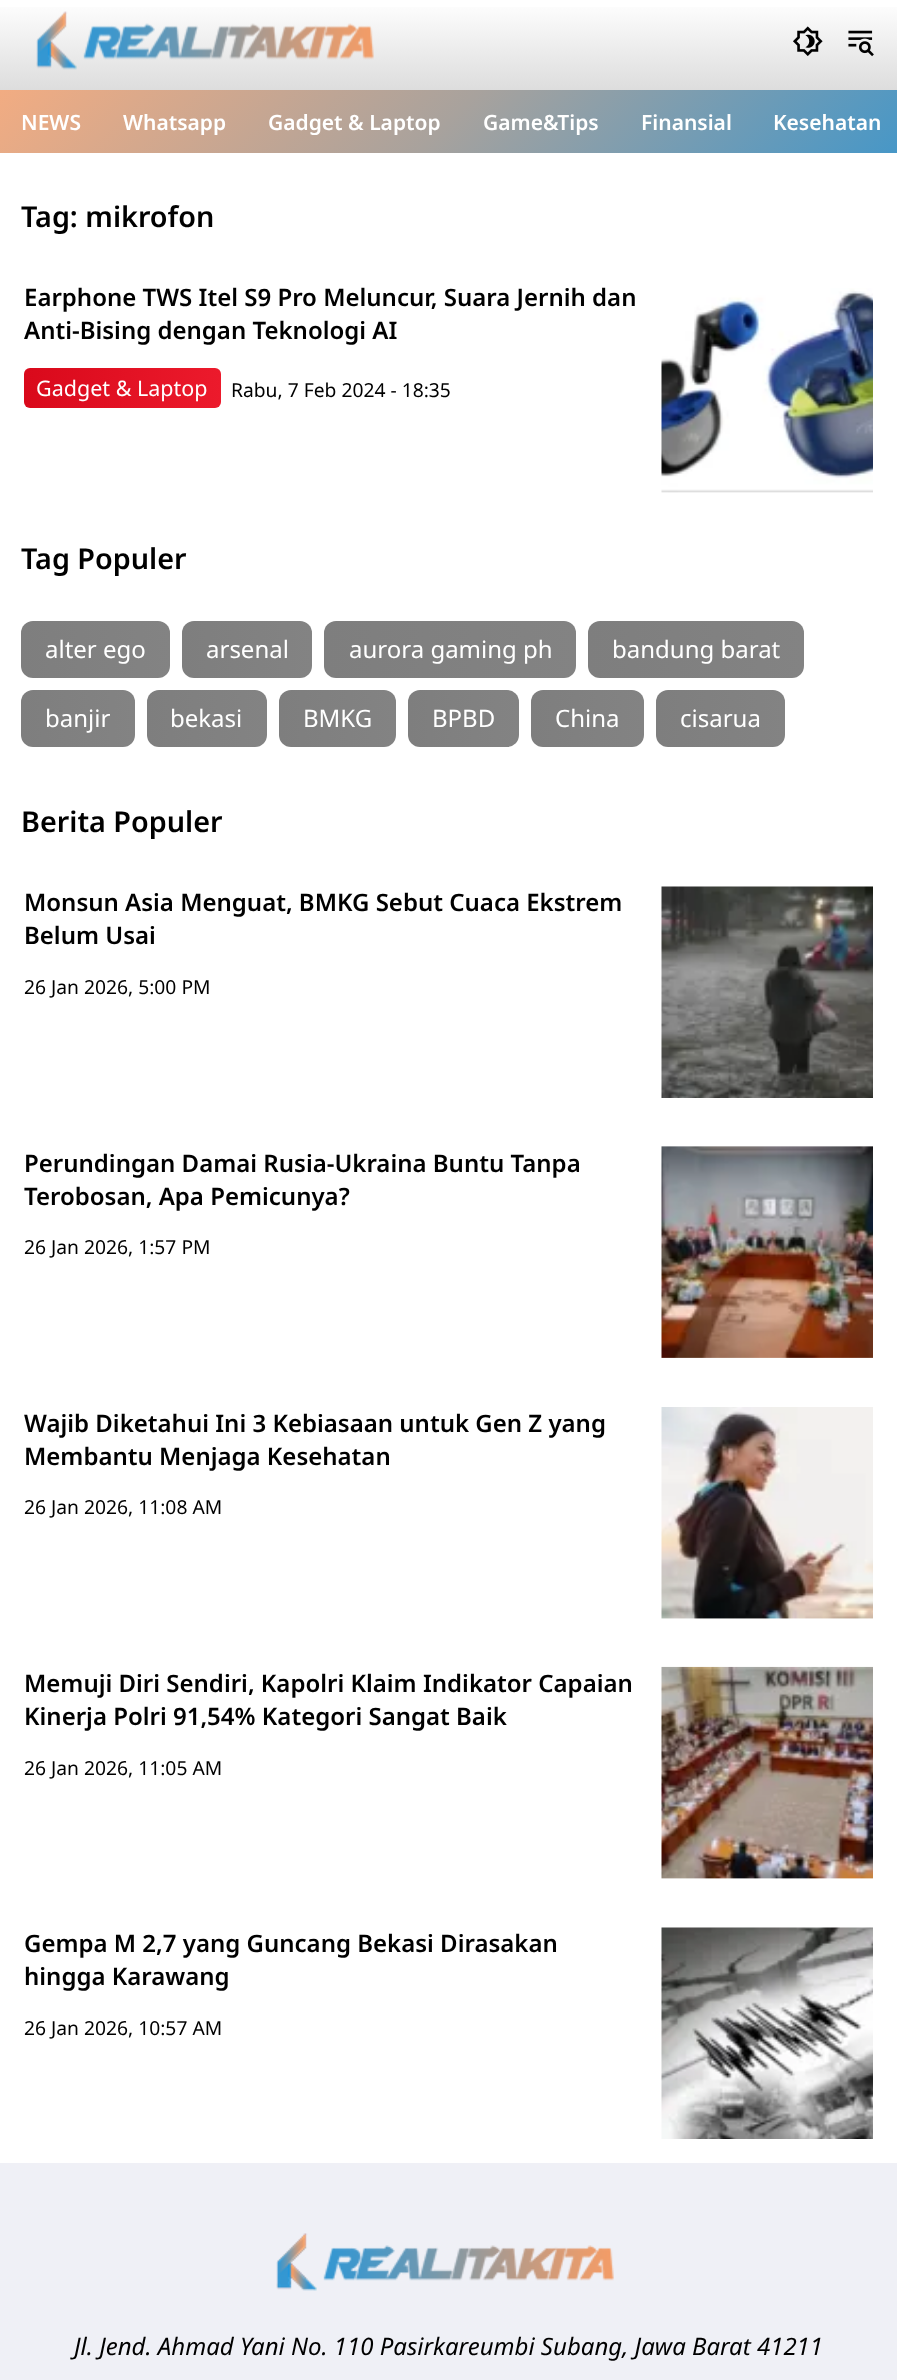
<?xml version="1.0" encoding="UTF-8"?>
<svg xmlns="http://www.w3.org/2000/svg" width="897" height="2380">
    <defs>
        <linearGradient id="g1" gradientUnits="userSpaceOnUse" x1="449" y1="0" x2="449" y2="90"><stop offset="0" stop-color="#FFFFFF"/><stop offset="1" stop-color="#DDDDDD"/></linearGradient>
        <linearGradient id="g2" gradientUnits="userSpaceOnUse" x1="208" y1="-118" x2="689" y2="362"><stop offset="0" stop-color="#F2AC82"/><stop offset="0.5" stop-color="#A8A29D"/><stop offset="1" stop-color="#4797C7"/></linearGradient>
        <linearGradient id="g3" gradientUnits="userSpaceOnUse" x1="24" y1="388" x2="221" y2="388"><stop offset="0" stop-color="#D9091B"/><stop offset="1" stop-color="#EC1A2C"/></linearGradient>
        <linearGradient id="g4" gradientUnits="userSpaceOnUse" x1="21" y1="650" x2="170" y2="650"><stop offset="0" stop-color="#7E7E7E"/><stop offset="1" stop-color="#838383"/></linearGradient>
        <linearGradient id="g5" gradientUnits="userSpaceOnUse" x1="182" y1="650" x2="312" y2="650"><stop offset="0" stop-color="#7E7E7E"/><stop offset="1" stop-color="#838383"/></linearGradient>
        <linearGradient id="g6" gradientUnits="userSpaceOnUse" x1="324" y1="650" x2="576" y2="650"><stop offset="0" stop-color="#7E7E7E"/><stop offset="1" stop-color="#838383"/></linearGradient>
        <linearGradient id="g7" gradientUnits="userSpaceOnUse" x1="588" y1="650" x2="804" y2="650"><stop offset="0" stop-color="#7E7E7E"/><stop offset="1" stop-color="#838383"/></linearGradient>
        <linearGradient id="g8" gradientUnits="userSpaceOnUse" x1="21" y1="719" x2="135" y2="719"><stop offset="0" stop-color="#7E7E7E"/><stop offset="1" stop-color="#838383"/></linearGradient>
        <linearGradient id="g9" gradientUnits="userSpaceOnUse" x1="147" y1="719" x2="267" y2="719"><stop offset="0" stop-color="#7E7E7E"/><stop offset="1" stop-color="#838383"/></linearGradient>
        <linearGradient id="g10" gradientUnits="userSpaceOnUse" x1="279" y1="719" x2="396" y2="719"><stop offset="0" stop-color="#7E7E7E"/><stop offset="1" stop-color="#838383"/></linearGradient>
        <linearGradient id="g11" gradientUnits="userSpaceOnUse" x1="408" y1="719" x2="519" y2="719"><stop offset="0" stop-color="#7E7E7E"/><stop offset="1" stop-color="#838383"/></linearGradient>
        <linearGradient id="g12" gradientUnits="userSpaceOnUse" x1="531" y1="719" x2="644" y2="719"><stop offset="0" stop-color="#7E7E7E"/><stop offset="1" stop-color="#838383"/></linearGradient>
        <linearGradient id="g13" gradientUnits="userSpaceOnUse" x1="656" y1="719" x2="785" y2="719"><stop offset="0" stop-color="#7E7E7E"/><stop offset="1" stop-color="#838383"/></linearGradient>
    </defs>
    <rect width="100%" height="100%" fill="#FFFFFF"/>
    <rect x="0" y="7" width="897" height="83" fill="url(#g1)"/>
    <image x="36" y="11" width="338" height="59" href="img_01.png"/>
    <image x="793" y="26" width="30" height="30" href="img_02.png"/>
    <image x="848" y="30" width="26" height="27" href="img_03.png"/>
    <rect x="0" y="90" width="897" height="63" fill="url(#g2)"/>
    <text x="21" y="130" font-family="Noto Sans" font-size="21" font-weight="600" fill="#FFFFFF">NEWS</text>
    <text x="123" y="130" font-family="Noto Sans" font-size="21" font-weight="600" fill="#FFFFFF">Whatsapp</text>
    <text x="268" y="130" font-family="Noto Sans" font-size="21" font-weight="600" fill="#FFFFFF">Gadget &amp; Laptop</text>
    <text x="483" y="130" font-family="Noto Sans" font-size="21" font-weight="600" fill="#FFFFFF">Game&amp;Tips</text>
    <text x="641" y="130" font-family="Noto Sans" font-size="21" font-weight="600" fill="#FFFFFF">Finansial</text>
    <text x="773" y="130" font-family="Noto Sans" font-size="21" font-weight="600" fill="#FFFFFF">Kesehatan</text>
    <text x="21" y="227" font-family="Noto Sans" font-size="28.75" font-weight="600" fill="#000000">Tag: mikrofon</text>
    <text font-family="Noto Sans" font-size="24" font-weight="600" fill="#000000">
        <tspan x="24" y="306">Earphone TWS Itel S9 Pro Meluncur, Suara Jernih dan</tspan>
        <tspan x="24" y="339">Anti-Bising dengan Teknologi AI</tspan>
    </text>
    <rect x="24" y="368" width="197" height="40" rx="6" fill="url(#g3)"/>
    <text x="36" y="396" font-family="Noto Sans" font-size="21.5" fill="#FFFFFF">Gadget &amp; Laptop</text>
    <text x="231" y="397" font-family="Noto Sans" font-size="19.25" fill="#000000">Rabu, 7 Feb 2024 - 18:35</text>
    <image x="661" y="288" width="212" height="205" href="img_04.png"/>
    <text x="21" y="569" font-family="Noto Sans" font-size="28.75" font-weight="600" fill="#000000">Tag Populer</text>
    <rect x="21" y="621" width="149" height="57" rx="12" fill="url(#g4)"/>
    <text x="45" y="658" font-family="Noto Sans" font-size="24" fill="#FFFFFF">alter ego</text>
    <rect x="182" y="621" width="130" height="57" rx="12" fill="url(#g5)"/>
    <text x="206" y="658" font-family="Noto Sans" font-size="24" fill="#FFFFFF">arsenal</text>
    <rect x="324" y="621" width="252" height="57" rx="12" fill="url(#g6)"/>
    <text x="349" y="658" font-family="Noto Sans" font-size="24" fill="#FFFFFF">aurora gaming ph</text>
    <rect x="588" y="621" width="216" height="57" rx="12" fill="url(#g7)"/>
    <text x="612" y="658" font-family="Noto Sans" font-size="24" fill="#FFFFFF">bandung barat</text>
    <rect x="21" y="690" width="114" height="57" rx="12" fill="url(#g8)"/>
    <text x="45" y="727" font-family="Noto Sans" font-size="24" fill="#FFFFFF">banjir</text>
    <rect x="147" y="690" width="120" height="57" rx="12" fill="url(#g9)"/>
    <text x="170" y="727" font-family="Noto Sans" font-size="24" fill="#FFFFFF">bekasi</text>
    <rect x="279" y="690" width="117" height="57" rx="12" fill="url(#g10)"/>
    <text x="303" y="727" font-family="Noto Sans" font-size="24" fill="#FFFFFF">BMKG</text>
    <rect x="408" y="690" width="111" height="57" rx="12" fill="url(#g11)"/>
    <text x="432" y="727" font-family="Noto Sans" font-size="24" fill="#FFFFFF">BPBD</text>
    <rect x="531" y="690" width="113" height="57" rx="12" fill="url(#g12)"/>
    <text x="555" y="727" font-family="Noto Sans" font-size="24" fill="#FFFFFF">China</text>
    <rect x="656" y="690" width="129" height="57" rx="12" fill="url(#g13)"/>
    <text x="680" y="727" font-family="Noto Sans" font-size="24" fill="#FFFFFF">cisarua</text>
    <text x="21" y="832" font-family="Noto Sans" font-size="28.75" font-weight="600" fill="#000000">Berita Populer</text>
    <text font-family="Noto Sans" font-size="24" font-weight="600" fill="#000000">
        <tspan x="24" y="911">Monsun Asia Menguat, BMKG Sebut Cuaca Ekstrem</tspan>
        <tspan x="24" y="944">Belum Usai</tspan>
    </text>
    <text x="24" y="994" font-family="Noto Sans" font-size="19.25" fill="#000000">26 Jan 2026, 5:00 PM</text>
    <image x="661" y="886" width="212" height="212" href="img_05.png"/>
    <text font-family="Noto Sans" font-size="24" font-weight="600" fill="#000000">
        <tspan x="24" y="1172">Perundingan Damai Rusia-Ukraina Buntu Tanpa</tspan>
        <tspan x="24" y="1205">Terobosan, Apa Pemicunya?</tspan>
    </text>
    <text x="24" y="1254" font-family="Noto Sans" font-size="19.25" fill="#000000">26 Jan 2026, 1:57 PM</text>
    <image x="661" y="1146" width="212" height="212" href="img_06.png"/>
    <text font-family="Noto Sans" font-size="24" font-weight="600" fill="#000000">
        <tspan x="24" y="1432">Wajib Diketahui Ini 3 Kebiasaan untuk Gen Z yang</tspan>
        <tspan x="24" y="1465">Membantu Menjaga Kesehatan</tspan>
    </text>
    <text x="24" y="1514" font-family="Noto Sans" font-size="19.25" fill="#000000">26 Jan 2026, 11:08 AM</text>
    <image x="661" y="1407" width="212" height="212" href="img_07.png"/>
    <text font-family="Noto Sans" font-size="24" font-weight="600" fill="#000000">
        <tspan x="24" y="1692">Memuji Diri Sendiri, Kapolri Klaim Indikator Capaian</tspan>
        <tspan x="24" y="1725">Kinerja Polri 91,54% Kategori Sangat Baik</tspan>
    </text>
    <text x="24" y="1775" font-family="Noto Sans" font-size="19.25" fill="#000000">26 Jan 2026, 11:05 AM</text>
    <image x="661" y="1666" width="212" height="213" href="img_08.png"/>
    <text font-family="Noto Sans" font-size="24" font-weight="600" fill="#000000">
        <tspan x="24" y="1952">Gempa M 2,7 yang Guncang Bekasi Dirasakan</tspan>
        <tspan x="24" y="1985">hingga Karawang</tspan>
    </text>
    <text x="24" y="2035" font-family="Noto Sans" font-size="19.25" fill="#000000">26 Jan 2026, 10:57 AM</text>
    <image x="661" y="1927" width="212" height="212" href="img_09.png"/>
    <rect x="0" y="2163" width="897" height="217" fill="#EFF0F6"/>
    <image x="276" y="2233" width="338" height="58" href="img_10.png"/>
    <text x="74" y="2355" font-family="Noto Sans" font-size="24" font-style="italic" fill="#000000">Jl. Jend. Ahmad Yani No. 110 Pasirkareumbi Subang, Jawa Barat 41211</text>
</svg>
